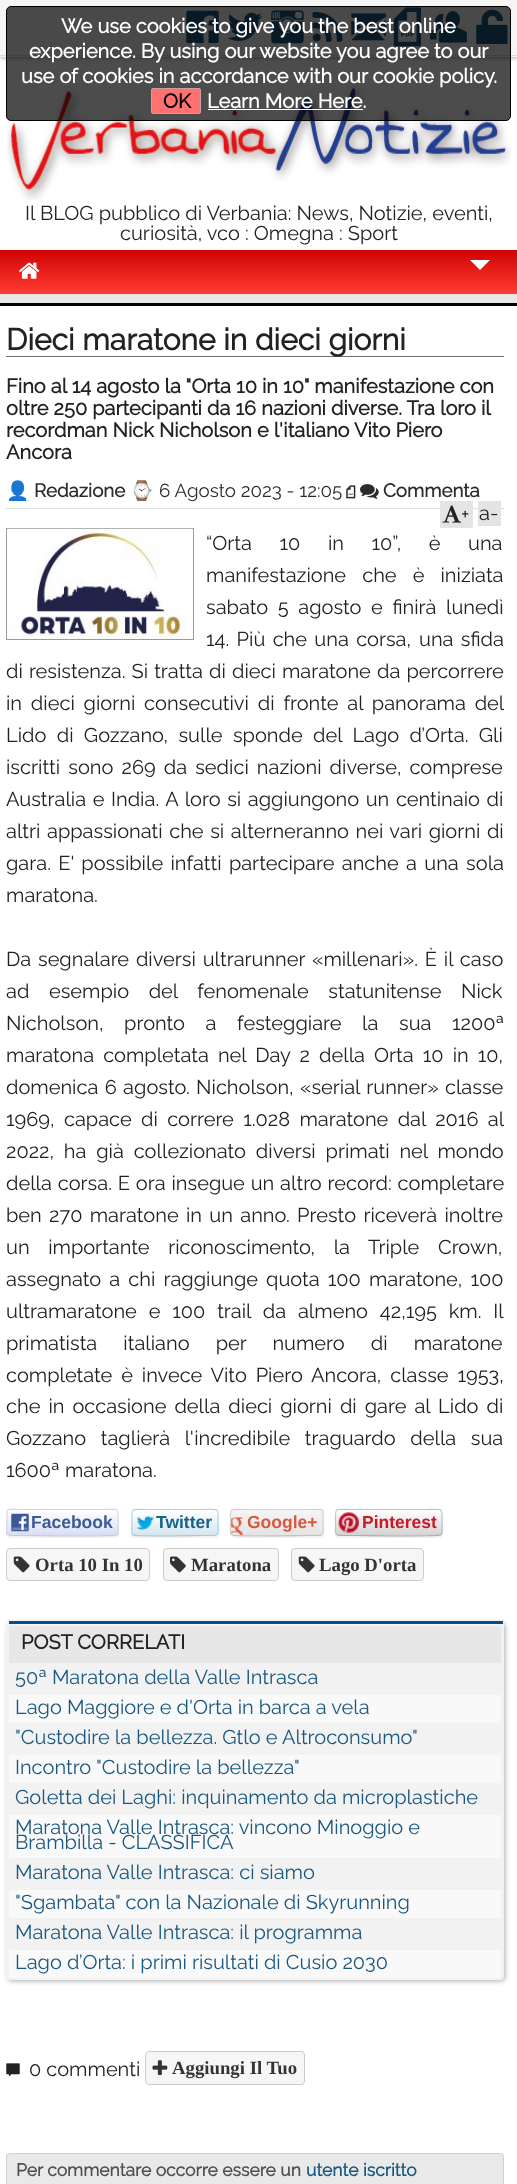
<?xml version="1.0" encoding="UTF-8"?>
<svg xmlns="http://www.w3.org/2000/svg" width="517" height="2184">
    <defs>
        <filter id="blur1" x="-50%" y="-200%" width="200%" height="500%"><feGaussianBlur stdDeviation="2"/></filter>
        <linearGradient id="g1" gradientUnits="userSpaceOnUse" x1="259" y1="250" x2="259" y2="294"><stop offset="0" stop-color="#CF0404"/><stop offset="1" stop-color="#FF3D32"/></linearGradient>
        <filter id="blur2" x="-50%" y="-200%" width="200%" height="500%"><feGaussianBlur stdDeviation="0.5"/></filter>
        <clipPath id="clip1"><rect x="6" y="1509" width="113" height="27" rx="4"/></clipPath>
        <linearGradient id="g2" gradientUnits="userSpaceOnUse" x1="63" y1="1485" x2="63" y2="1510"><stop offset="0" stop-color="#FFFFFF"/><stop offset="1" stop-color="#D8DEF4"/></linearGradient>
        <linearGradient id="g3" gradientUnits="userSpaceOnUse" x1="63" y1="1510" x2="63" y2="1535"><stop offset="0" stop-color="#FFFFFF"/><stop offset="1" stop-color="#D8DEF4"/></linearGradient>
        <clipPath id="clip2"><rect x="131" y="1509" width="88" height="27" rx="4"/></clipPath>
        <linearGradient id="g4" gradientUnits="userSpaceOnUse" x1="175" y1="1485" x2="175" y2="1510"><stop offset="0" stop-color="#FFFFFF"/><stop offset="1" stop-color="#D5E6EF"/></linearGradient>
        <linearGradient id="g5" gradientUnits="userSpaceOnUse" x1="175" y1="1510" x2="175" y2="1535"><stop offset="0" stop-color="#FFFFFF"/><stop offset="1" stop-color="#D5E6EF"/></linearGradient>
        <clipPath id="clip3"><rect x="230" y="1509" width="94" height="27" rx="4"/></clipPath>
        <linearGradient id="g6" gradientUnits="userSpaceOnUse" x1="277" y1="1485" x2="277" y2="1510"><stop offset="0" stop-color="#F5F5F5"/><stop offset="1" stop-color="#E4E4E4"/></linearGradient>
        <linearGradient id="g7" gradientUnits="userSpaceOnUse" x1="277" y1="1510" x2="277" y2="1535"><stop offset="0" stop-color="#F5F5F5"/><stop offset="1" stop-color="#E4E4E4"/></linearGradient>
        <linearGradient id="g8" gradientUnits="userSpaceOnUse" x1="277" y1="1535" x2="277" y2="1560"><stop offset="0" stop-color="#F5F5F5"/><stop offset="1" stop-color="#E4E4E4"/></linearGradient>
        <clipPath id="clip4"><rect x="335" y="1509" width="108" height="27" rx="4"/></clipPath>
        <linearGradient id="g9" gradientUnits="userSpaceOnUse" x1="389" y1="1485" x2="389" y2="1510"><stop offset="0" stop-color="#FEFEFE"/><stop offset="1" stop-color="#D3D3D3"/></linearGradient>
        <linearGradient id="g10" gradientUnits="userSpaceOnUse" x1="389" y1="1510" x2="389" y2="1535"><stop offset="0" stop-color="#FEFEFE"/><stop offset="1" stop-color="#D3D3D3"/></linearGradient>
        <linearGradient id="g11" gradientUnits="userSpaceOnUse" x1="389" y1="1535" x2="389" y2="1560"><stop offset="0" stop-color="#FEFEFE"/><stop offset="1" stop-color="#D3D3D3"/></linearGradient>
        <filter id="blur3" x="-50%" y="-200%" width="200%" height="500%"><feGaussianBlur stdDeviation="2.5"/></filter>
    </defs>
    <rect width="100%" height="100%" fill="#FFFFFF"/>
    <rect x="0" y="1" width="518" height="57" fill="#000000" fill-opacity="0.35" filter="url(#blur1)"/>
    <rect x="0" y="0" width="517" height="57" fill="#F5F5F5"/>
    <rect x="0" y="55" width="517" height="1" fill="#DDDDDD"/>
    <image x="186" y="10" width="33" height="34" href="img_01.png"/>
    <image x="227" y="12" width="35" height="29" href="img_02.png"/>
    <image x="271" y="10" width="33" height="34" href="img_03.png"/>
    <image x="312" y="12" width="31" height="30" href="img_04.png"/>
    <image x="351" y="13" width="35" height="28" href="img_05.png"/>
    <image x="393" y="7" width="28" height="40" href="img_06.png"/>
    <image x="430" y="11" width="37" height="32" href="img_07.png"/>
    <image x="476" y="9" width="32" height="35" href="img_08.png"/>
    <image x="7" y="85" width="504" height="115" href="img_09.png"/>
    <rect x="6.5" y="6.5" width="504" height="114" rx="4.5" fill="#000000" fill-opacity="0.7" stroke="#000000"/>
    <text x="61" y="33" font-family="Raleway" font-size="20" font-weight="700" fill="#FFFFFF">We use cookies to give you the best online</text>
    <text x="29" y="58" font-family="Raleway" font-size="20" font-weight="700" fill="#FFFFFF">experience. By using our website you agree to our</text>
    <text x="21" y="83" font-family="Raleway" font-size="20" font-weight="700" fill="#FFFFFF">use of cookies in accordance with our cookie policy.</text>
    <rect x="151" y="88" width="50" height="26" rx="2.5" fill="#FF7070"/>
    <rect x="151.5" y="88.5" width="49" height="25" rx="2" fill="none" stroke="#B4B4B4" stroke-opacity="0.72"/>
    <text x="163" y="108" font-family="Raleway" font-size="20" font-weight="700" fill="#000000">OK</text>
    <text x="207" y="108" font-family="Raleway" font-size="20" font-weight="700" fill="#FFFFFF">Learn More Here.</text>
    <rect x="208" y="109" width="155" height="1" fill="#FFFFFF"/>
    <text x="25" y="220" font-family="Raleway" font-size="20" font-weight="100" fill="#222222">Il BLOG pubblico di Verbania: News, Notizie, eventi,</text>
    <text x="120" y="240" font-family="Raleway" font-size="20" font-weight="100" fill="#222222">curiosità, vco : Omegna : Sport</text>
    <rect x="0" y="250" width="517" height="44" fill="url(#g1)"/>
    <image x="19" y="262" width="21" height="17" href="img_10.png"/>
    <path d="M 470 260 H 490 L 480 270 Z" fill="#FFFFFF"/>
    <rect x="0" y="294" width="517" height="9" fill="#E7E7E7"/>
    <rect x="0" y="303" width="517" height="3" fill="#000000"/>
    <rect x="6" y="356" width="498" height="1" fill="#6F6F6F"/>
    <text x="6" y="350" font-family="Raleway" font-size="30" font-weight="700" fill="#222222">Dieci maratone in dieci giorni</text>
    <text font-family="Raleway" font-size="20" font-weight="700" fill="#222222">
        <tspan x="6" y="393">Fino al 14 agosto la "Orta 10 in 10" manifestazione con</tspan>
        <tspan x="6" y="415">oltre 250 partecipanti da 16 nazioni diverse. Tra loro il</tspan>
        <tspan x="6" y="437">recordman Nick Nicholson e l'italiano Vito Piero</tspan>
        <tspan x="6" y="459">Ancora</tspan>
    </text>
    <rect x="6" y="508" width="498" height="1" fill="#DDDDDD"/>
    <text x="6" y="497" font-family="Noto Color Emoji" font-size="18.75" font-weight="700" fill="#2B2B2B">👤</text>
    <text x="34" y="497" font-family="Raleway" font-size="18.75" font-weight="700" fill="#2B2B2B">Redazione</text>
    <text x="130" y="497" font-family="Noto Color Emoji" font-size="18.75" fill="#2B2B2B">⌚</text>
    <text x="159" y="497" font-family="Raleway" font-size="18.75" font-weight="100" fill="#2B2B2B">6 Agosto 2023 - 12:05</text>
    <image x="346" y="485" width="10" height="14" href="img_11.png"/>
    <image x="360" y="484" width="19" height="15" href="img_12.png"/>
    <text x="383" y="497" font-family="Raleway" font-size="18.75" font-weight="700" fill="#2B2B2B">Commenta</text>
    <rect x="440" y="501" width="33" height="27" fill="#E4E4E4"/>
    <image x="442" y="505" width="20" height="18" href="img_13.png"/>
    <text x="461" y="521" font-family="Raleway" font-size="20" font-weight="100" fill="#222222">+</text>
    <rect x="478" y="501" width="23" height="25" fill="#E4E4E4"/>
    <text x="479" y="520" font-family="Raleway" font-size="20" font-weight="100" fill="#222222">a-</text>
    <rect x="6.5" y="528.5" width="187" height="111" fill="none" stroke="#9A9A9A"/>
    <image x="7" y="528" width="186" height="111" href="img_14.png"/>
    <text font-family="Raleway" font-size="20" font-weight="100" fill="#222222">
        <tspan x="206" y="550" word-spacing="22.5">“Orta 10 in 10”, è una</tspan>
        <tspan x="206" y="582" word-spacing="11">manifestazione che è iniziata</tspan>
        <tspan x="206" y="614" word-spacing="4.5">sabato 5 agosto e finirà lunedì</tspan>
        <tspan x="206" y="646" word-spacing="2.25">14. Più che una corsa,</tspan>
    </text>
    <text x="419" y="646" word-spacing="2.25" font-family="Raleway" font-size="20" font-weight="100" fill="#222222">una sfida</text>
    <text font-family="Raleway" font-size="20" font-weight="100" fill="#222222">
        <tspan x="6" y="678" word-spacing="1">di resistenza. Si tratta di dieci maratone da percorrere</tspan>
        <tspan x="6" y="710" word-spacing="3.75">in dieci giorni consecutivi di fronte al panorama del</tspan>
        <tspan x="6" y="742" word-spacing="5.25">Lido di Gozzano, sulle sponde del Lago d’Orta. Gli</tspan>
        <tspan x="6" y="774" word-spacing="3">iscritti sono 269 da sedici nazioni diverse, comprese</tspan>
        <tspan x="6" y="806" word-spacing="1.5">Australia e India. A loro si aggiungono un centinaio di</tspan>
        <tspan x="6" y="838" word-spacing="1.5">altri appassionati che si alterneranno nei vari giorni di</tspan>
        <tspan x="6" y="870" word-spacing="2.25">gara. E' possibile infatti partecipare anche a una sola</tspan>
        <tspan x="6" y="902">maratona.</tspan>
    </text>
    <text font-family="Raleway" font-size="20" font-weight="100" fill="#222222">
        <tspan x="6" y="966" word-spacing="1.75">Da segnalare diversi ultrarunner «millenari». È il caso</tspan>
        <tspan x="6" y="998" word-spacing="14.5">ad esempio del fenomenale statunitense Nick</tspan>
        <tspan x="6" y="1030" word-spacing="15.5">Nicholson, pronto a festeggiare la sua 1200ª</tspan>
        <tspan x="6" y="1062" word-spacing="4">maratona completata nel Day 2 della Orta 10 in 10,</tspan>
        <tspan x="6" y="1094" word-spacing="1.25">domenica 6 agosto. Nicholson, «serial runner» classe</tspan>
        <tspan x="6" y="1126" word-spacing="4.25">1969, capace di correre 1.028 maratone dal 2016 al</tspan>
        <tspan x="6" y="1158" word-spacing="4.75">2022, ha già collezionato diversi primati nel mondo</tspan>
        <tspan x="6" y="1190" word-spacing="0.75">della corsa. E ora insegue un altro record: completare</tspan>
        <tspan x="6" y="1222" word-spacing="2.25">ben 270 maratone in un anno. Presto riceverà inoltre</tspan>
        <tspan x="6" y="1254" word-spacing="13.5">un importante riconoscimento, la Triple Crown,</tspan>
        <tspan x="6" y="1286" word-spacing="3">assegnato a chi raggiunge quota 100 maratone, 100</tspan>
        <tspan x="6" y="1318" word-spacing="6.75">ultramaratone e 100 trail da almeno 42,195 km. Il</tspan>
        <tspan x="6" y="1350" word-spacing="21">primatista italiano per numero di maratone</tspan>
        <tspan x="6" y="1382" word-spacing="3.75">completate è invece Vito Piero Ancora, classe 1953,</tspan>
        <tspan x="6" y="1413" word-spacing="2.9">che in occasione della dieci giorni di gare al Lido di</tspan>
        <tspan x="6" y="1445" word-spacing="9.5">Gozzano taglierà l'incredibile traguardo della sua</tspan>
        <tspan x="6" y="1477">1600ª maratona.</tspan>
    </text>
    <rect x="6" y="1510" width="113" height="28" rx="4" fill="#000000" fill-opacity="0.05" filter="url(#blur2)"/>
    <g clip-path="url(#clip1)">
        <rect x="6" y="1509" width="113" height="1" fill="url(#g2)"/>
        <rect x="6" y="1510" width="113" height="25" fill="url(#g3)"/>
    </g>
    <path d="M 117 1534.5 L 116.5 1535 C 114.5 1536.5 37 1535.5 27.5 1535.5 H 10 L 8 1534.5" fill="none" stroke="#BDC2CB" stroke-opacity="0.8" stroke-width="1.2"/>
    <path d="M 8 1534.5 C 5.5 1532.5 7 1528 7 1526 C 7 1505 4 1509.5 27.5 1509.5 H 97.5 C 121 1509.5 118 1505 118 1526 C 118 1528 119.5 1532.5 117 1534.5" fill="none" stroke="#CAD4E7" stroke-opacity="0.8" stroke-width="1.2"/>
    <image x="11" y="1513" width="18" height="19" href="img_15.png"/>
    <text x="31" y="1528" font-family="Liberation Sans" font-size="17.5" font-weight="700" fill="#3B5998">Facebook</text>
    <rect x="131" y="1510" width="88" height="28" rx="4" fill="#000000" fill-opacity="0.05" filter="url(#blur2)"/>
    <g clip-path="url(#clip2)">
        <rect x="131" y="1509" width="88" height="1" fill="url(#g4)"/>
        <rect x="131" y="1510" width="88" height="25" fill="url(#g5)"/>
    </g>
    <path d="M 217 1534.5 L 215 1535.5 H 201.5 C 194 1535.5 135 1536.5 133 1535 V 1534.5" fill="none" stroke="#9EBACC" stroke-opacity="0.8" stroke-width="1.2"/>
    <path d="M 133 1534.5 C 130.5 1532.5 132 1528 132 1526 C 132 1506.5 128.5 1509.5 148.5 1509.5 H 201.5 C 221.5 1509.5 218 1506.5 218 1526 C 218 1528 219.5 1532.5 217 1534.5" fill="none" stroke="#A4CCE5" stroke-opacity="0.8" stroke-width="1.2"/>
    <image x="136" y="1516" width="18" height="14" href="img_16.png"/>
    <text x="156" y="1528" font-family="Liberation Sans" font-size="17.5" font-weight="700" fill="#186487">Twitter</text>
    <rect x="230" y="1510" width="94" height="28" rx="4" fill="#000000" fill-opacity="0.05" filter="url(#blur2)"/>
    <g clip-path="url(#clip3)">
        <rect x="230" y="1509" width="94" height="1" fill="url(#g6)"/>
        <rect x="230" y="1510" width="94" height="25" fill="url(#g7)"/>
        <rect x="230" y="1535" width="94" height="1" fill="url(#g8)"/>
    </g>
    <path d="M 322 1534.5 L 320 1535.5 H 305.5 C 297.5 1535.5 234 1536.5 232 1535 L 231.5 1534.5" fill="none" stroke="#B3B3B3" stroke-opacity="0.8" stroke-width="1.2"/>
    <path d="M 231.5 1534.5 C 229.5 1532.5 230.5 1528 230.5 1526 C 230.5 1506 227.5 1509.5 248 1509.5 H 305.5 C 326.5 1509.5 323 1506 323 1526 C 323 1528 324.5 1532.5 322 1534.5" fill="none" stroke="#CCCCCC" stroke-opacity="0.8" stroke-width="1.2"/>
    <image x="231" y="1517" width="13" height="18" href="img_17.png"/>
    <text x="247" y="1528" font-family="Liberation Sans" font-size="17.5" font-weight="700" fill="#DA573B">Google+</text>
    <rect x="335" y="1510" width="108" height="28" rx="4" fill="#000000" fill-opacity="0.05" filter="url(#blur2)"/>
    <g clip-path="url(#clip4)">
        <rect x="335" y="1509" width="108" height="1" fill="url(#g9)"/>
        <rect x="335" y="1510" width="108" height="25" fill="url(#g10)"/>
        <rect x="335" y="1535" width="108" height="1" fill="url(#g11)"/>
    </g>
    <path d="M 441 1534.5 L 440.5 1535 C 438.5 1536.5 364.5 1535.5 355.5 1535.5 H 339 L 336.5 1534.5" fill="none" stroke="#999999" stroke-opacity="0.8" stroke-width="1.2"/>
    <path d="M 336.5 1534.5 C 334.5 1532.5 335.5 1528 335.5 1526 C 335.5 1505.5 332.5 1509.5 355.5 1509.5 H 422 C 445 1509.5 442 1505.5 442 1526 C 442 1528 443 1532.5 441 1534.5" fill="none" stroke="#BABABA" stroke-opacity="0.8" stroke-width="1.2"/>
    <image x="338" y="1512" width="21" height="21" href="img_18.png"/>
    <text x="362" y="1528" font-family="Liberation Sans" font-size="17.5" font-weight="700" fill="#C71A28">Pinterest</text>
    <rect x="6.5" y="1548.5" width="143" height="32" rx="3.5" fill="#F6F6F6" stroke="#CCCCCC"/>
    <image x="13" y="1556" width="17" height="17" href="img_19.png"/>
    <text x="35" y="1571" font-family="Liberation Serif" font-size="18.75" font-weight="700" fill="#333333">Orta 10 In 10</text>
    <rect x="163.5" y="1548.5" width="115" height="32" rx="3.5" fill="#F6F6F6" stroke="#CCCCCC"/>
    <image x="170" y="1556" width="16" height="17" href="img_20.png"/>
    <text x="191" y="1571" font-family="Liberation Serif" font-size="18.75" font-weight="700" fill="#333333">Maratona</text>
    <rect x="291.5" y="1548.5" width="132" height="32" rx="3.5" fill="#F6F6F6" stroke="#CCCCCC"/>
    <image x="298" y="1556" width="17" height="17" href="img_19.png"/>
    <text x="319" y="1571" font-family="Liberation Serif" font-size="18.75" font-weight="700" fill="#333333">Lago D'orta</text>
    <rect x="8" y="1623" width="497" height="358" rx="4" fill="#AAAAAA" filter="url(#blur3)"/>
    <rect x="6" y="1621" width="498" height="359" rx="4" fill="#F2F2F2"/>
    <rect x="9" y="1621" width="494" height="3" fill="#005189"/>
    <rect x="9" y="1626" width="492" height="37" fill="#E7E7E7"/>
    <text x="21" y="1649" font-family="Raleway" font-size="20" font-weight="700" fill="#222222">POST CORRELATI</text>
    <text x="15" y="1684" font-family="Raleway" font-size="20" font-weight="100" fill="#1A587F">50ª Maratona della Valle Intrasca</text>
    <rect x="9" y="1695" width="492" height="28" fill="#F9F9F9"/>
    <text font-family="Raleway" font-size="20" font-weight="100" fill="#1A587F">
        <tspan x="15" y="1714">Lago Maggiore e d'Orta in barca a vela</tspan>
        <tspan x="15" y="1744">"Custodire la bellezza. Gtlo e Altroconsumo"</tspan>
    </text>
    <rect x="9" y="1755" width="492" height="28" fill="#F9F9F9"/>
    <text font-family="Raleway" font-size="20" font-weight="100" fill="#1A587F">
        <tspan x="15" y="1774">Incontro "Custodire la bellezza"</tspan>
        <tspan x="15" y="1804">Goletta dei Laghi: inquinamento da microplastiche</tspan>
    </text>
    <rect x="9" y="1815" width="492" height="43" fill="#F9F9F9"/>
    <text font-family="Raleway" font-size="20" font-weight="100" fill="#1A587F">
        <tspan x="15" y="1834">Maratona Valle Intrasca: vincono Minoggio e</tspan>
        <tspan x="15" y="1849">Brambilla - CLASSIFICA</tspan>
        <tspan x="15" y="1879">Maratona Valle Intrasca: ci siamo</tspan>
    </text>
    <rect x="9" y="1890" width="492" height="28" fill="#F9F9F9"/>
    <text font-family="Raleway" font-size="20" font-weight="100" fill="#1A587F">
        <tspan x="15" y="1909">"Sgambata" con la Nazionale di Skyrunning</tspan>
        <tspan x="15" y="1939">Maratona Valle Intrasca: il programma</tspan>
    </text>
    <rect x="9" y="1950" width="492" height="28" fill="#F9F9F9"/>
    <text x="15" y="1969" font-family="Raleway" font-size="20" font-weight="100" fill="#1A587F">Lago d’Orta: i primi risultati di Cusio 2030</text>
    <image x="6" y="2063" width="14" height="13" href="img_21.png"/>
    <text x="29" y="2076" font-family="Raleway" font-size="20" font-weight="100" fill="#222222">0 commenti</text>
    <rect x="145.5" y="2051.5" width="159" height="33" rx="3.5" fill="#F6F6F6" stroke="#CCCCCC"/>
    <image x="152" y="2060" width="16" height="15" href="img_22.png"/>
    <text x="172" y="2074" font-family="Liberation Serif" font-size="18.75" font-weight="700" fill="#333333">Aggiungi Il Tuo</text>
    <rect x="6" y="2153" width="498" height="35" rx="4" fill="#E9E9E9"/>
    <rect x="6.5" y="2153.5" width="497" height="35" rx="3.5" fill="none" stroke="#000000" stroke-opacity="0.1"/>
    <text x="16" y="2176" font-family="Raleway" font-size="17.5" font-weight="700" fill="#505050">Per commentare occorre essere un</text>
    <text x="306" y="2176" font-family="Raleway" font-size="17.5" font-weight="700" fill="#1A587F">utente iscritto</text>
</svg>
